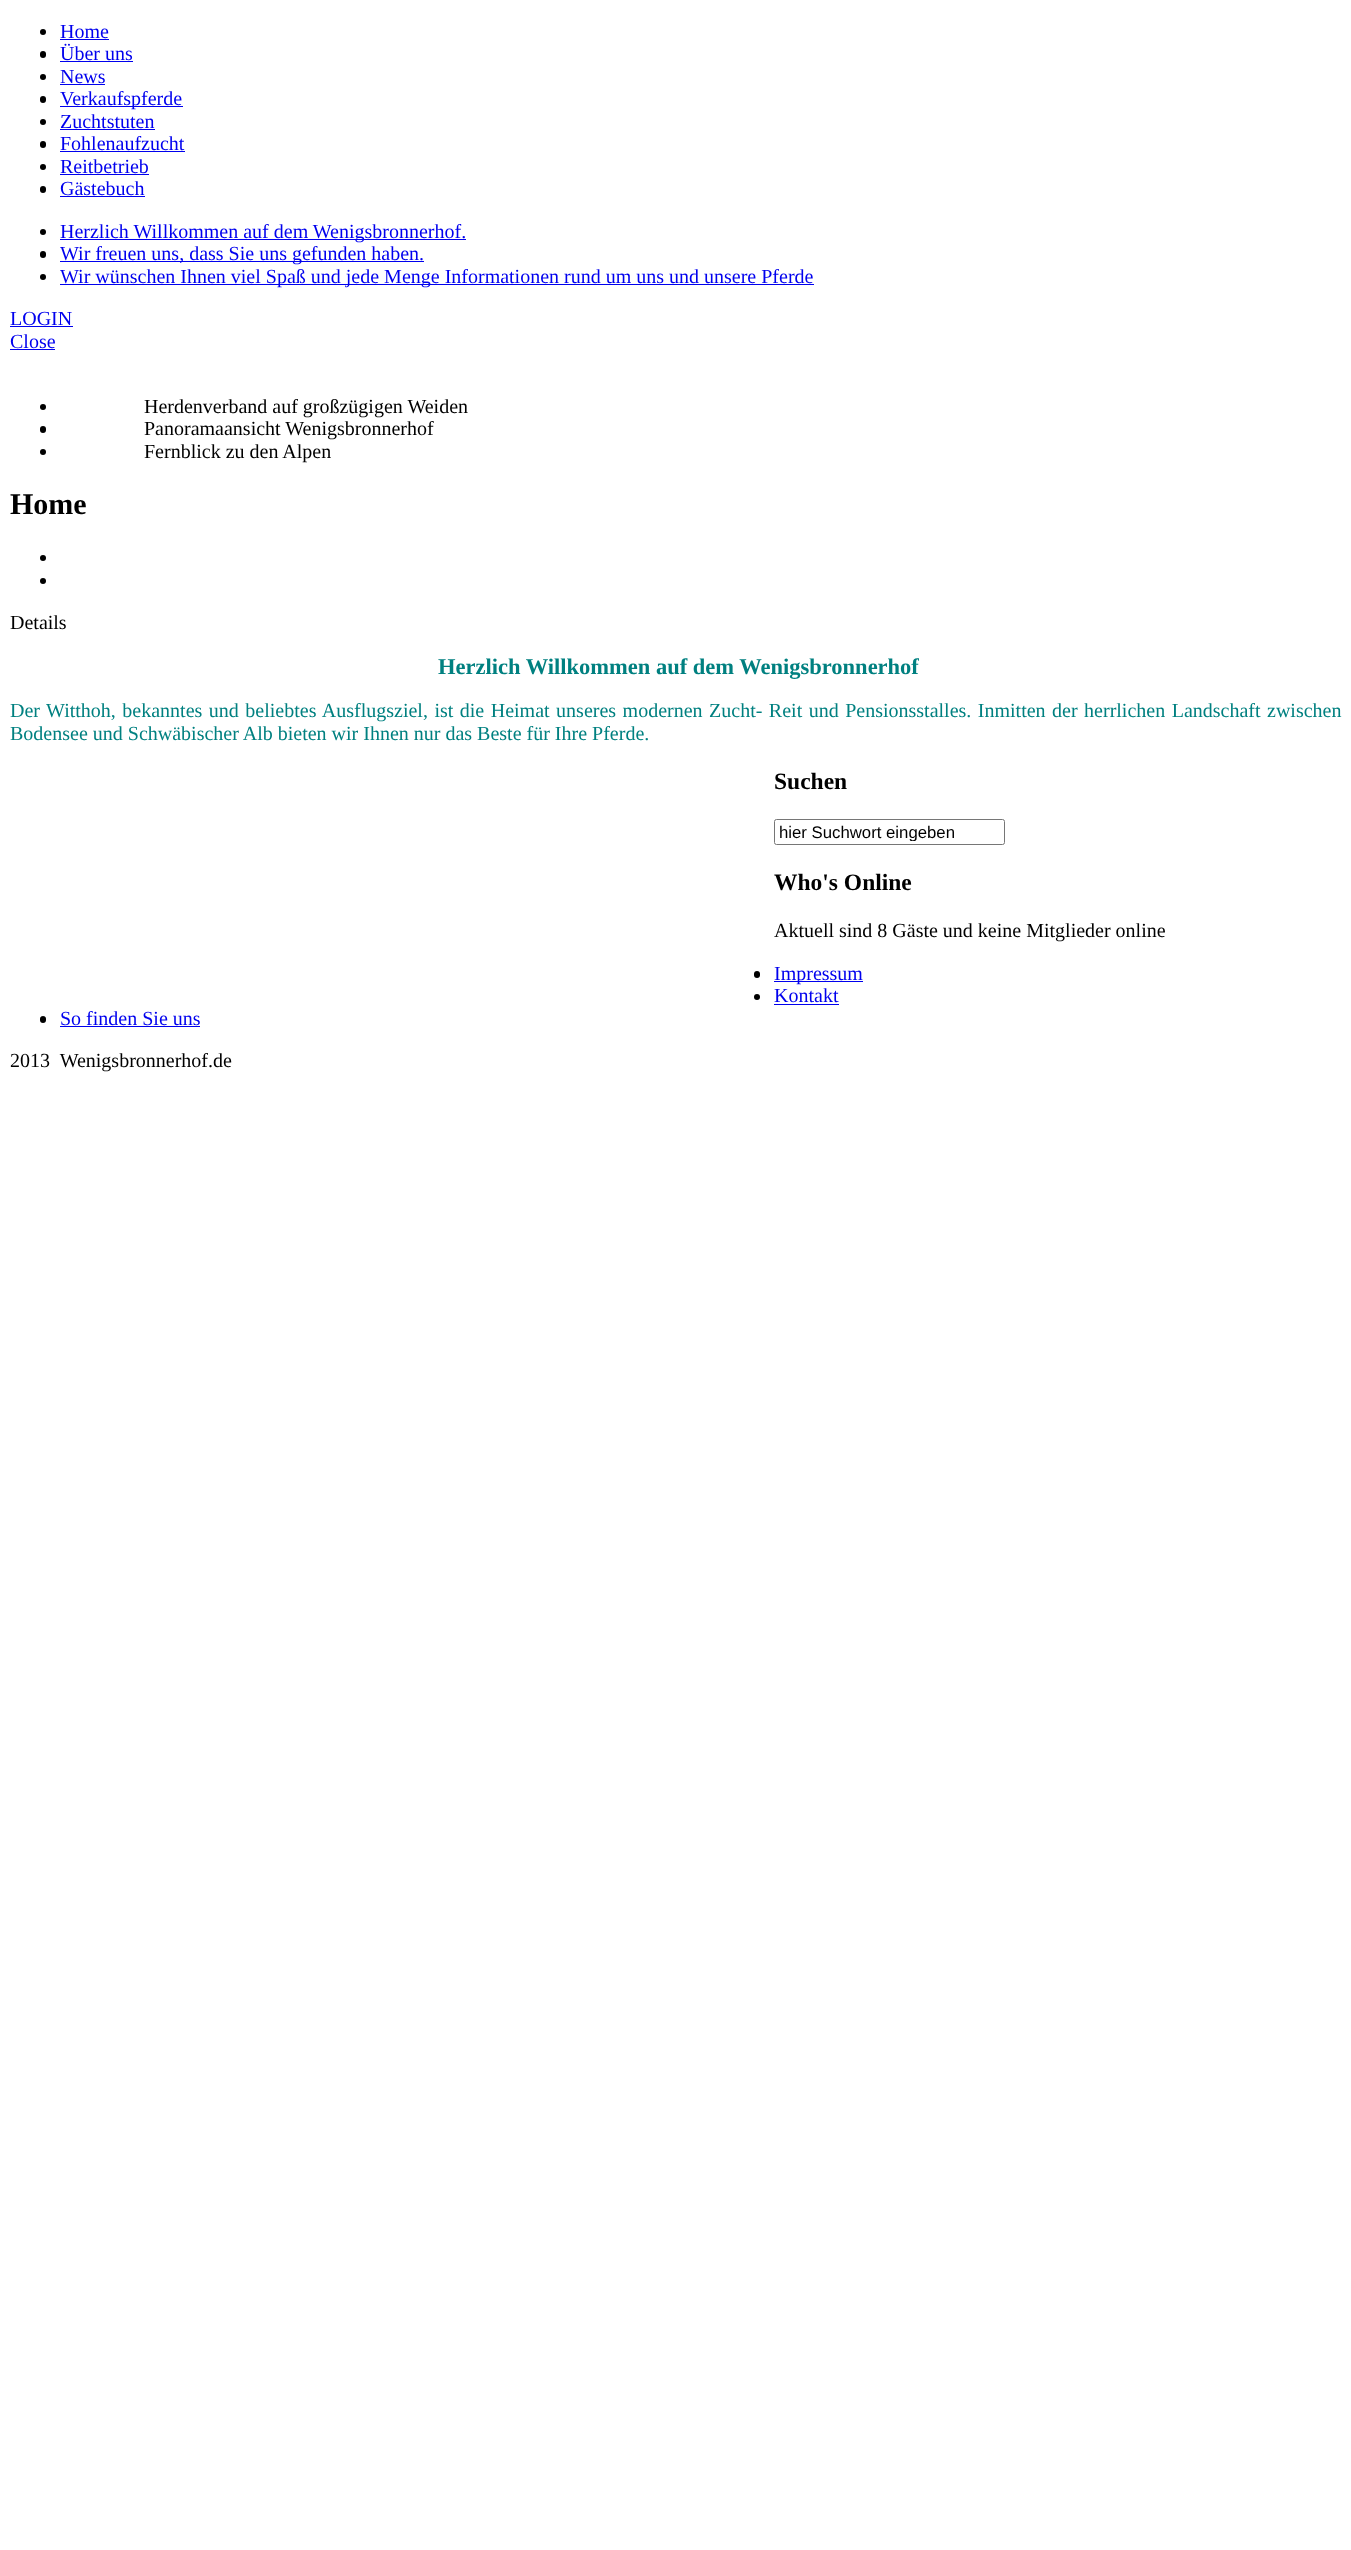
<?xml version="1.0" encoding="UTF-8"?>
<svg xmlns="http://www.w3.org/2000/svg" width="1351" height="2550">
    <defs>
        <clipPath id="clip1"><rect x="779" y="823" width="221" height="18"/></clipPath>
    </defs>
    <rect width="100%" height="100%" fill="#FFFFFF"/>
    <circle cx="43" cy="32" r="3" fill="#000000"/>
    <text x="60" y="38" font-family="Liberation Serif" font-size="20" fill="#0000EE">Home</text>
    <rect x="60" y="39" width="49" height="1" fill="#0000EE"/>
    <rect x="40" y="51" width="6" height="7" rx="3" fill="#000000"/>
    <text x="60" y="60" font-family="Liberation Serif" font-size="20" fill="#0000EE">Über uns</text>
    <rect x="60" y="61" width="73" height="1" fill="#0000EE"/>
    <circle cx="43" cy="77" r="3" fill="#000000"/>
    <text x="60" y="83" font-family="Liberation Serif" font-size="20" fill="#0000EE">News</text>
    <rect x="60" y="84" width="45" height="1" fill="#0000EE"/>
    <rect x="40" y="96" width="6" height="7" rx="3" fill="#000000"/>
    <rect x="60" y="106" width="123" height="1" fill="#0000EE"/>
    <text x="60" y="105" font-family="Liberation Serif" font-size="20" fill="#0000EE">Verkaufspferde</text>
    <circle cx="43" cy="122" r="3" fill="#000000"/>
    <text x="60" y="128" font-family="Liberation Serif" font-size="20" fill="#0000EE">Zuchtstuten</text>
    <rect x="60" y="129" width="95" height="1" fill="#0000EE"/>
    <rect x="40" y="141" width="6" height="7" rx="3" fill="#000000"/>
    <text x="60" y="150" font-family="Liberation Serif" font-size="20" fill="#0000EE">Fohlenaufzucht</text>
    <rect x="60" y="151" width="125" height="1" fill="#0000EE"/>
    <circle cx="43" cy="167" r="3" fill="#000000"/>
    <text x="60" y="173" font-family="Liberation Serif" font-size="20" fill="#0000EE">Reitbetrieb</text>
    <rect x="60" y="174" width="89" height="1" fill="#0000EE"/>
    <rect x="40" y="186" width="6" height="7" rx="3" fill="#000000"/>
    <text x="60" y="195" font-family="Liberation Serif" font-size="20" fill="#0000EE">Gästebuch</text>
    <rect x="60" y="196" width="85" height="1" fill="#0000EE"/>
    <circle cx="43" cy="232" r="3" fill="#000000"/>
    <rect x="60" y="239" width="406" height="1" fill="#0000EE"/>
    <text x="60" y="238" font-family="Liberation Serif" font-size="20" fill="#0000EE">Herzlich Willkommen auf dem Wenigsbronnerhof.</text>
    <rect x="40" y="251" width="6" height="7" rx="3" fill="#000000"/>
    <rect x="60" y="261" width="364" height="1" fill="#0000EE"/>
    <text x="60" y="260" font-family="Liberation Serif" font-size="20" fill="#0000EE">Wir freuen uns, dass Sie uns gefunden haben.</text>
    <circle cx="43" cy="277" r="3" fill="#000000"/>
    <rect x="60" y="284" width="754" height="1" fill="#0000EE"/>
    <text x="60" y="283" font-family="Liberation Serif" font-size="20" fill="#0000EE">Wir wünschen Ihnen viel Spaß und jede Menge Informationen rund um uns und unsere Pferde</text>
    <text x="10" y="325" font-family="Liberation Serif" font-size="20" fill="#0000EE">LOGIN</text>
    <rect x="10" y="326" width="63" height="1" fill="#0000EE"/>
    <text x="10" y="348" font-family="Liberation Serif" font-size="20" fill="#0000EE">Close</text>
    <rect x="10" y="349" width="45" height="1" fill="#0000EE"/>
    <circle cx="43" cy="407" r="3" fill="#000000"/>
    <text x="144" y="413" font-family="Liberation Serif" font-size="20" fill="#000000">Herdenverband auf großzügigen Weiden</text>
    <rect x="40" y="426" width="6" height="7" rx="3" fill="#000000"/>
    <text x="144" y="435" font-family="Liberation Serif" font-size="20" fill="#000000">Panoramaansicht Wenigsbronnerhof</text>
    <circle cx="43" cy="452" r="3" fill="#000000"/>
    <text x="144" y="458" font-family="Liberation Serif" font-size="20" fill="#000000">Fernblick zu den Alpen</text>
    <text x="10" y="514" font-family="Liberation Serif" font-size="30" font-weight="700" fill="#000000">Home</text>
    <circle cx="43" cy="558" r="3" fill="#000000"/>
    <circle cx="43" cy="581" r="3" fill="#000000"/>
    <text x="10" y="629" font-family="Liberation Serif" font-size="20" fill="#000000">Details</text>
    <text x="438" y="674" font-family="Liberation Serif" font-size="22.5" font-weight="700" fill="#008080">Herzlich Willkommen auf dem Wenigsbronnerhof</text>
    <text font-family="Liberation Serif" font-size="20" fill="#008080">
        <tspan x="10" y="717" word-spacing="1.5">Der Witthoh, bekanntes und beliebtes Ausflugsziel, ist die Heimat unseres modernen Zucht- Reit und Pensionsstalles. Inmitten der herrlichen Landschaft zwischen</tspan>
        <tspan x="10" y="740">Bodensee und Schwäbischer Alb bieten wir Ihnen nur das Beste für Ihre Pferde.</tspan>
    </text>
    <text x="774" y="789" font-family="Liberation Serif" font-size="23.5" font-weight="700" fill="#000000">Suchen</text>
    <rect x="774.5" y="819.5" width="230" height="25" rx="2" fill="none" stroke="#767676"/>
    <g clip-path="url(#clip1)">
        <text x="779" y="838" font-family="Liberation Sans" font-size="16.75" fill="#000000">hier Suchwort eingeben</text>
    </g>
    <text x="774" y="890" font-family="Liberation Serif" font-size="23.5" font-weight="700" fill="#000000">Who's Online</text>
    <text x="774" y="937" font-family="Liberation Serif" font-size="20" fill="#000000">Aktuell sind 8 Gäste und keine Mitglieder online</text>
    <rect x="754" y="971" width="6" height="7" rx="3" fill="#000000"/>
    <rect x="774" y="981" width="89" height="1" fill="#0000EE"/>
    <text x="774" y="980" font-family="Liberation Serif" font-size="20" fill="#0000EE">Impressum</text>
    <circle cx="757" cy="997" r="3" fill="#000000"/>
    <text x="774" y="1002" font-family="Liberation Serif" font-size="20" fill="#0000EE">Kontakt</text>
    <rect x="774" y="1004" width="65" height="1" fill="#0000EE"/>
    <rect x="40" y="1016" width="6" height="7" rx="3" fill="#000000"/>
    <text x="60" y="1025" font-family="Liberation Serif" font-size="20" fill="#0000EE">So finden Sie uns</text>
    <rect x="60" y="1026" width="140" height="1" fill="#0000EE"/>
    <text x="10" y="1067" font-family="Liberation Serif" font-size="20" fill="#000000" xml:space="preserve">2013  Wenigsbronnerhof.de</text>
</svg>
